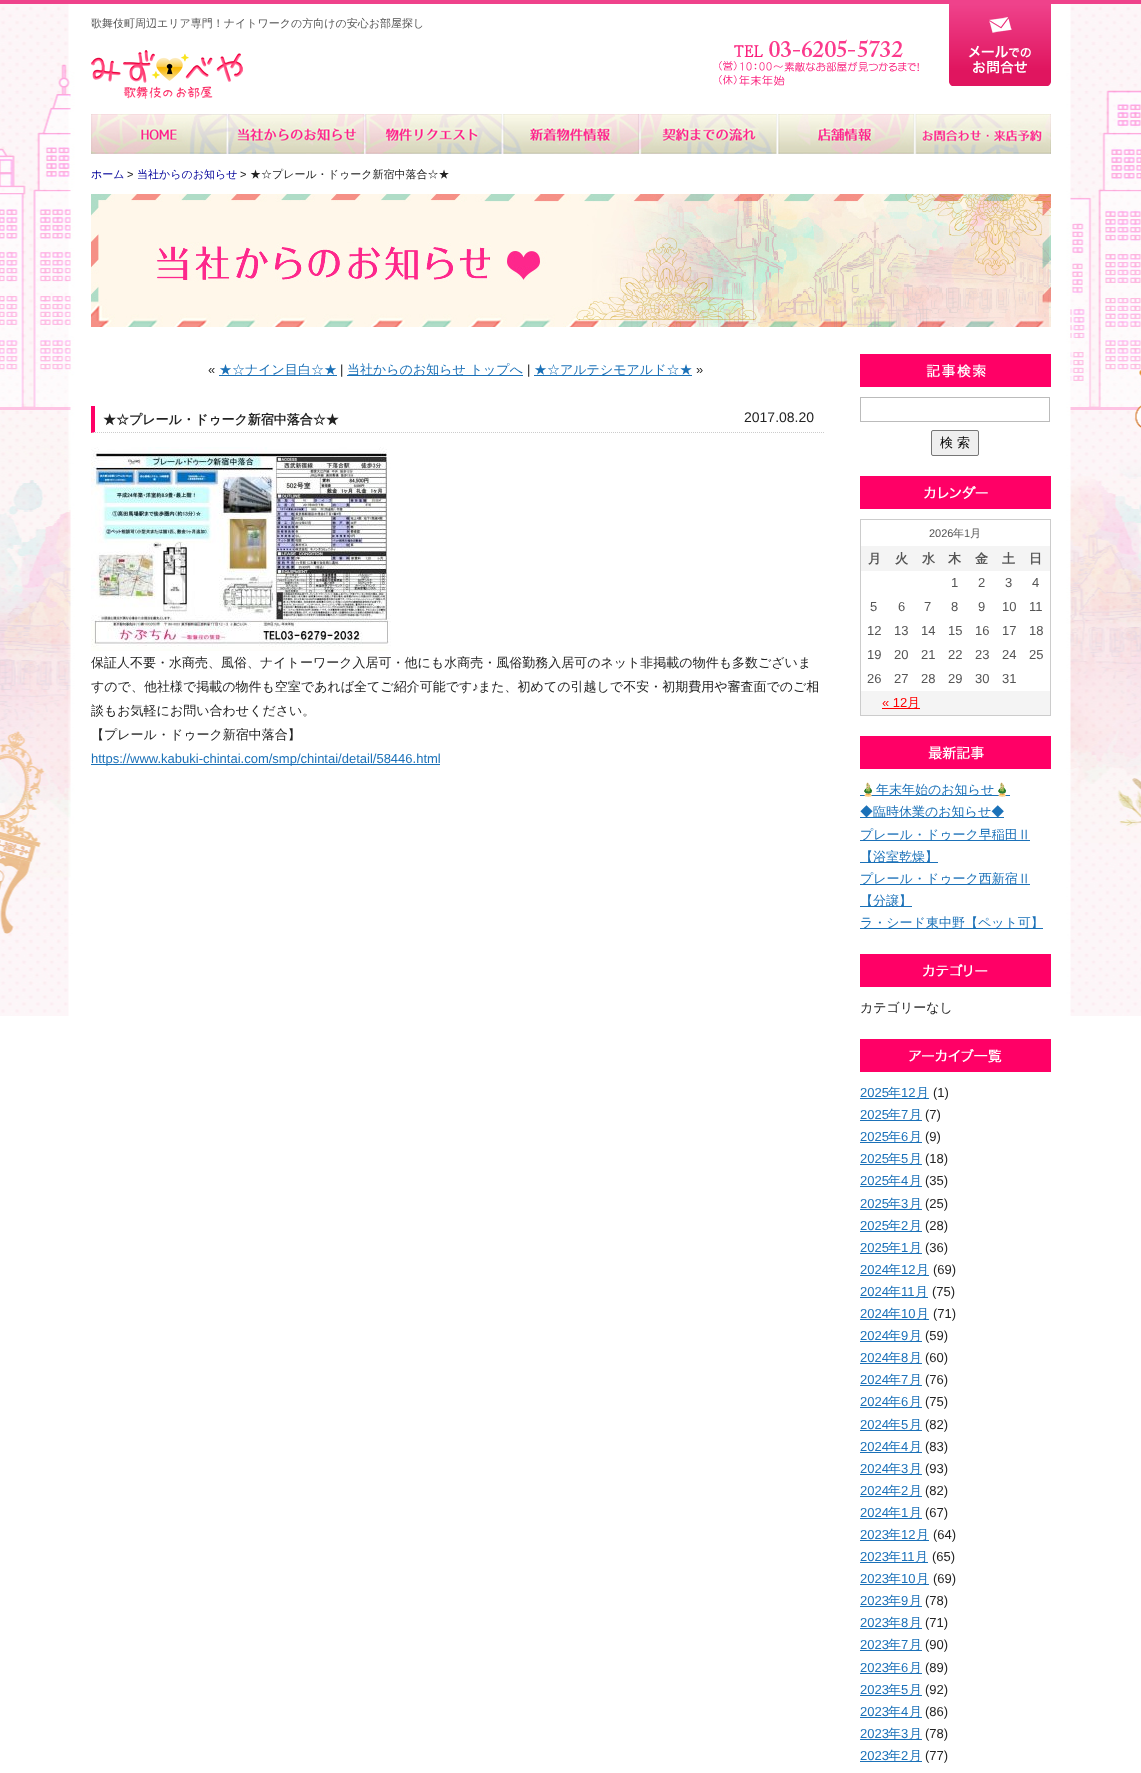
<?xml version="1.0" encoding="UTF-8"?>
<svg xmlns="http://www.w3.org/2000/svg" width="1141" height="1773">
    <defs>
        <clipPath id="clip1"><rect x="91" y="447" width="730" height="334"/></clipPath>
    </defs>
    <rect width="100%" height="100%" fill="#FFFFFF"/>
    <image x="0" y="4" width="1141" height="1012" href="img_01.png"/>
    <rect x="0" y="0" width="1141" height="4" fill="#EF428B"/>
    <text x="91" y="27" font-family="WenQuanYi Zen Hei" font-size="11" font-weight="500" fill="#555555">歌舞伎町周辺エリア専門！ナイトワークの方向けの安心お部屋探し</text>
    <image x="719" y="39" width="200" height="47" href="img_02.png"/>
    <image x="949" y="4" width="102" height="82" href="img_03.png"/>
    <image x="91" y="50" width="152" height="49" href="img_04.png"/>
    <image x="91" y="114" width="137" height="40" href="img_05.png"/>
    <image x="228" y="114" width="137" height="40" href="img_06.png"/>
    <image x="365" y="114" width="137" height="40" href="img_07.png"/>
    <image x="502" y="114" width="137" height="40" href="img_08.png"/>
    <image x="639" y="114" width="137" height="40" href="img_09.png"/>
    <image x="776" y="114" width="137" height="40" href="img_10.png"/>
    <image x="913" y="114" width="138" height="40" href="img_11.png"/>
    <text x="91" y="178" font-family="WenQuanYi Zen Hei" font-size="11" font-weight="500" fill="#000099">ホーム</text>
    <text x="127" y="178" font-family="Liberation Sans" font-size="11" fill="#222222">&gt;</text>
    <text x="137" y="178" font-family="WenQuanYi Zen Hei" font-size="11" font-weight="500" fill="#000099">当社からのお知らせ</text>
    <text x="240" y="178" font-family="Liberation Sans" font-size="11" fill="#222222">&gt;</text>
    <text x="250" y="178" font-family="WenQuanYi Zen Hei" font-size="11" font-weight="500" fill="#222222">★☆プレール・ドゥーク新宿中落合☆★</text>
    <image x="91" y="194" width="960" height="133" href="img_12.png"/>
    <text x="208" y="374" font-family="Liberation Sans" font-size="13" fill="#222222">«</text>
    <rect x="219" y="375" width="118" height="1" fill="#1B71B8"/>
    <text x="219" y="374" font-family="WenQuanYi Zen Hei" font-size="13" font-weight="500" fill="#1B71B8">★☆ナイン目白☆★</text>
    <text x="340" y="374" font-family="Liberation Sans" font-size="13" fill="#222222">|</text>
    <rect x="347" y="375" width="176" height="1" fill="#1B71B8"/>
    <text x="347" y="374" font-family="WenQuanYi Zen Hei" font-size="13" font-weight="500" fill="#1B71B8">当社からのお知らせ トップへ</text>
    <text x="527" y="374" font-family="Liberation Sans" font-size="13" fill="#222222">|</text>
    <rect x="534" y="375" width="158" height="1" fill="#1B71B8"/>
    <text x="534" y="374" font-family="WenQuanYi Zen Hei" font-size="13" font-weight="500" fill="#1B71B8">★☆アルテシモアルド☆★</text>
    <text x="696" y="374" font-family="Liberation Sans" font-size="13" fill="#222222">»</text>
    <path d="M 91 432.5 H 825" fill="none" stroke="#CCCCCC" stroke-dasharray="1 1"/>
    <path d="M 91 433 V 406 H 95 V 432 Z" fill="#FF0066"/>
    <text x="103" y="424" font-family="WenQuanYi Zen Hei" font-size="13" font-weight="700" fill="#222222">★☆プレール・ドゥーク新宿中落合☆★</text>
    <text x="744" y="422" font-family="Liberation Sans" font-size="14" fill="#222222">2017.08.20</text>
    <image x="91" y="447" width="300" height="204" href="img_13.png"/>
    <text font-family="WenQuanYi Zen Hei" font-size="13" font-weight="500" fill="#222222">
        <tspan x="91" y="667">保証人不要・水商売、風俗、ナイトーワーク入居可・他にも水商売・風俗勤務入居可のネット非掲載の物件も多数ございま</tspan>
        <tspan x="91" y="691">すので、他社様で掲載の物件も空室であれば全てご紹介可能です</tspan>
    </text>
    <text x="472" y="691" font-family="Liberation Sans" font-size="13" fill="#222222">♪</text>
    <text x="478" y="691" font-family="WenQuanYi Zen Hei" font-size="13" font-weight="500" fill="#222222">また、初めての引越しで不安・初期費用や審査面でのご相</text>
    <g clip-path="url(#clip1)">
        <text x="91" y="715" font-family="WenQuanYi Zen Hei" font-size="13" font-weight="500" fill="#222222">談もお気軽にお問い合わせください。</text>
    </g>
    <text x="91" y="739" font-family="WenQuanYi Zen Hei" font-size="13" font-weight="500" fill="#222222">【プレール・ドゥーク新宿中落合】</text>
    <rect x="91" y="764" width="349" height="1" fill="#1B71B8"/>
    <text x="91" y="763" font-family="Liberation Sans" font-size="13" fill="#1B71B8">https://www.kabuki-chintai.com/smp/chintai/detail/58446.html</text>
    <image x="860" y="354" width="191" height="33" href="img_14.png"/>
    <rect x="860.5" y="397.5" width="189" height="24" fill="none" stroke="#BBBBBB"/>
    <rect x="931.5" y="430.5" width="47" height="25" rx="1.5" fill="#EFEFEF" stroke="#767676"/>
    <text x="940" y="447" font-family="WenQuanYi Zen Hei" font-size="13" font-weight="500" fill="#000000">検 索</text>
    <image x="860" y="476" width="191" height="33" href="img_15.png"/>
    <rect x="860" y="519" width="191" height="1" fill="#CCCCCC"/>
    <rect x="1050" y="519" width="1" height="197" fill="#CCCCCC"/>
    <rect x="860" y="715" width="191" height="1" fill="#CCCCCC"/>
    <rect x="860" y="519" width="1" height="197" fill="#CCCCCC"/>
    <text x="929" y="537" font-family="Liberation Sans" font-size="11" fill="#555555">2026</text>
    <text x="953" y="537" font-family="WenQuanYi Zen Hei" font-size="11" font-weight="500" fill="#555555">年</text>
    <text x="964" y="537" font-family="Liberation Sans" font-size="11" fill="#555555">1</text>
    <text x="970" y="537" font-family="WenQuanYi Zen Hei" font-size="11" font-weight="500" fill="#555555">月</text>
    <rect x="861" y="546" width="189" height="25" fill="#F4F4F4"/>
    <text x="868" y="563" font-family="WenQuanYi Zen Hei" font-size="13" font-weight="700" fill="#555555">月</text>
    <text x="895" y="563" font-family="WenQuanYi Zen Hei" font-size="13" font-weight="700" fill="#555555">火</text>
    <text x="922" y="563" font-family="WenQuanYi Zen Hei" font-size="13" font-weight="700" fill="#555555">水</text>
    <text x="948" y="563" font-family="WenQuanYi Zen Hei" font-size="13" font-weight="700" fill="#555555">木</text>
    <text x="975" y="563" font-family="WenQuanYi Zen Hei" font-size="13" font-weight="700" fill="#555555">金</text>
    <text x="1002" y="563" font-family="WenQuanYi Zen Hei" font-size="13" font-weight="700" fill="#555555">土</text>
    <text x="1029" y="563" font-family="WenQuanYi Zen Hei" font-size="13" font-weight="700" fill="#555555">日</text>
    <text x="951" y="587" font-family="Liberation Sans" font-size="13" fill="#555555">1</text>
    <text x="978" y="587" font-family="Liberation Sans" font-size="13" fill="#555555">2</text>
    <text x="1005" y="587" font-family="Liberation Sans" font-size="13" fill="#555555">3</text>
    <text x="1032" y="587" font-family="Liberation Sans" font-size="13" fill="#555555">4</text>
    <text x="870" y="611" font-family="Liberation Sans" font-size="13" fill="#555555">5</text>
    <text x="898" y="611" font-family="Liberation Sans" font-size="13" fill="#555555">6</text>
    <text x="924" y="611" font-family="Liberation Sans" font-size="13" fill="#555555">7</text>
    <text x="951" y="611" font-family="Liberation Sans" font-size="13" fill="#555555">8</text>
    <text x="978" y="611" font-family="Liberation Sans" font-size="13" fill="#555555">9</text>
    <text x="1002" y="611" font-family="Liberation Sans" font-size="13" fill="#555555">10</text>
    <text x="1029" y="611" font-family="Liberation Sans" font-size="13" fill="#555555">11</text>
    <text x="867" y="635" font-family="Liberation Sans" font-size="13" fill="#555555">12</text>
    <text x="894" y="635" font-family="Liberation Sans" font-size="13" fill="#555555">13</text>
    <text x="921" y="635" font-family="Liberation Sans" font-size="13" fill="#555555">14</text>
    <text x="948" y="635" font-family="Liberation Sans" font-size="13" fill="#555555">15</text>
    <text x="975" y="635" font-family="Liberation Sans" font-size="13" fill="#555555">16</text>
    <text x="1002" y="635" font-family="Liberation Sans" font-size="13" fill="#555555">17</text>
    <text x="1029" y="635" font-family="Liberation Sans" font-size="13" fill="#555555">18</text>
    <text x="867" y="659" font-family="Liberation Sans" font-size="13" fill="#555555">19</text>
    <text x="894" y="659" font-family="Liberation Sans" font-size="13" fill="#555555">20</text>
    <text x="921" y="659" font-family="Liberation Sans" font-size="13" fill="#555555">21</text>
    <text x="948" y="659" font-family="Liberation Sans" font-size="13" fill="#555555">22</text>
    <text x="975" y="659" font-family="Liberation Sans" font-size="13" fill="#555555">23</text>
    <text x="1002" y="659" font-family="Liberation Sans" font-size="13" fill="#555555">24</text>
    <text x="1029" y="659" font-family="Liberation Sans" font-size="13" fill="#555555">25</text>
    <text x="867" y="683" font-family="Liberation Sans" font-size="13" fill="#555555">26</text>
    <text x="894" y="683" font-family="Liberation Sans" font-size="13" fill="#555555">27</text>
    <text x="921" y="683" font-family="Liberation Sans" font-size="13" fill="#555555">28</text>
    <text x="948" y="683" font-family="Liberation Sans" font-size="13" fill="#555555">29</text>
    <text x="975" y="683" font-family="Liberation Sans" font-size="13" fill="#555555">30</text>
    <text x="1002" y="683" font-family="Liberation Sans" font-size="13" fill="#555555">31</text>
    <rect x="861" y="691" width="189" height="24" fill="#F4F4F4"/>
    <text x="882" y="707" font-family="Liberation Sans" font-size="13" fill="#FF0000">« 12</text>
    <rect x="882" y="708" width="38" height="1" fill="#FF0000"/>
    <text x="907" y="707" font-family="WenQuanYi Zen Hei" font-size="13" font-weight="500" fill="#FF0000">月</text>
    <image x="860" y="736" width="191" height="33" href="img_16.png"/>
    <rect x="860" y="795" width="150" height="1" fill="#1B71B8"/>
    <text x="860" y="794" font-family="Noto Color Emoji" font-size="13" fill="#1B71B8">🎍</text>
    <text x="876" y="794" font-family="WenQuanYi Zen Hei" font-size="13" font-weight="500" fill="#1B71B8">年末年始のお知らせ</text>
    <text x="994" y="794" font-family="Noto Color Emoji" font-size="13" fill="#1B71B8">🎍</text>
    <rect x="860" y="817" width="144" height="1" fill="#1B71B8"/>
    <text x="860" y="816" font-family="WenQuanYi Zen Hei" font-size="13" font-weight="500" fill="#1B71B8">◆臨時休業のお知らせ◆</text>
    <rect x="860" y="840" width="170" height="1" fill="#1B71B8"/>
    <text x="860" y="839" font-family="WenQuanYi Zen Hei" font-size="13" font-weight="500" fill="#1B71B8">プレール・ドゥーク早稲田Ⅱ</text>
    <rect x="860" y="862" width="78" height="1" fill="#1B71B8"/>
    <text x="860" y="861" font-family="WenQuanYi Zen Hei" font-size="13" font-weight="500" fill="#1B71B8">【浴室乾燥】</text>
    <rect x="860" y="884" width="170" height="1" fill="#1B71B8"/>
    <text x="860" y="883" font-family="WenQuanYi Zen Hei" font-size="13" font-weight="500" fill="#1B71B8">プレール・ドゥーク西新宿Ⅱ</text>
    <rect x="860" y="906" width="52" height="1" fill="#1B71B8"/>
    <text x="860" y="905" font-family="WenQuanYi Zen Hei" font-size="13" font-weight="500" fill="#1B71B8">【分譲】</text>
    <rect x="860" y="928" width="183" height="1" fill="#1B71B8"/>
    <text x="860" y="927" font-family="WenQuanYi Zen Hei" font-size="13" font-weight="500" fill="#1B71B8">ラ・シード東中野【ペット可】</text>
    <image x="860" y="954" width="191" height="33" href="img_17.png"/>
    <text x="860" y="1012" font-family="WenQuanYi Zen Hei" font-size="13" font-weight="500" fill="#222222">カテゴリーなし</text>
    <image x="860" y="1039" width="191" height="33" href="img_18.png"/>
    <text x="860" y="1097" font-family="Liberation Sans" font-size="13" fill="#1B71B8">2025</text>
    <rect x="860" y="1098" width="69" height="1" fill="#1B71B8"/>
    <text x="888" y="1097" font-family="WenQuanYi Zen Hei" font-size="13" font-weight="500" fill="#1B71B8">年</text>
    <text x="901" y="1097" font-family="Liberation Sans" font-size="13" fill="#1B71B8">12</text>
    <text x="916" y="1097" font-family="WenQuanYi Zen Hei" font-size="13" font-weight="500" fill="#1B71B8">月</text>
    <text x="933" y="1097" font-family="Liberation Sans" font-size="13" fill="#222222">(1)</text>
    <text x="860" y="1119" font-family="Liberation Sans" font-size="13" fill="#1B71B8">2025</text>
    <rect x="860" y="1120" width="62" height="1" fill="#1B71B8"/>
    <text x="888" y="1119" font-family="WenQuanYi Zen Hei" font-size="13" font-weight="500" fill="#1B71B8">年</text>
    <text x="901" y="1119" font-family="Liberation Sans" font-size="13" fill="#1B71B8">7</text>
    <text x="909" y="1119" font-family="WenQuanYi Zen Hei" font-size="13" font-weight="500" fill="#1B71B8">月</text>
    <text x="925" y="1119" font-family="Liberation Sans" font-size="13" fill="#222222">(7)</text>
    <text x="860" y="1141" font-family="Liberation Sans" font-size="13" fill="#1B71B8">2025</text>
    <rect x="860" y="1142" width="62" height="1" fill="#1B71B8"/>
    <text x="888" y="1141" font-family="WenQuanYi Zen Hei" font-size="13" font-weight="500" fill="#1B71B8">年</text>
    <text x="901" y="1141" font-family="Liberation Sans" font-size="13" fill="#1B71B8">6</text>
    <text x="909" y="1141" font-family="WenQuanYi Zen Hei" font-size="13" font-weight="500" fill="#1B71B8">月</text>
    <text x="925" y="1141" font-family="Liberation Sans" font-size="13" fill="#222222">(9)</text>
    <text x="860" y="1163" font-family="Liberation Sans" font-size="13" fill="#1B71B8">2025</text>
    <rect x="860" y="1164" width="62" height="1" fill="#1B71B8"/>
    <text x="888" y="1163" font-family="WenQuanYi Zen Hei" font-size="13" font-weight="500" fill="#1B71B8">年</text>
    <text x="901" y="1163" font-family="Liberation Sans" font-size="13" fill="#1B71B8">5</text>
    <text x="909" y="1163" font-family="WenQuanYi Zen Hei" font-size="13" font-weight="500" fill="#1B71B8">月</text>
    <text x="925" y="1163" font-family="Liberation Sans" font-size="13" fill="#222222">(18)</text>
    <text x="860" y="1185" font-family="Liberation Sans" font-size="13" fill="#1B71B8">2025</text>
    <rect x="860" y="1186" width="62" height="1" fill="#1B71B8"/>
    <text x="888" y="1185" font-family="WenQuanYi Zen Hei" font-size="13" font-weight="500" fill="#1B71B8">年</text>
    <text x="901" y="1185" font-family="Liberation Sans" font-size="13" fill="#1B71B8">4</text>
    <text x="909" y="1185" font-family="WenQuanYi Zen Hei" font-size="13" font-weight="500" fill="#1B71B8">月</text>
    <text x="925" y="1185" font-family="Liberation Sans" font-size="13" fill="#222222">(35)</text>
    <text x="860" y="1208" font-family="Liberation Sans" font-size="13" fill="#1B71B8">2025</text>
    <rect x="860" y="1209" width="62" height="1" fill="#1B71B8"/>
    <text x="888" y="1208" font-family="WenQuanYi Zen Hei" font-size="13" font-weight="500" fill="#1B71B8">年</text>
    <text x="901" y="1208" font-family="Liberation Sans" font-size="13" fill="#1B71B8">3</text>
    <text x="909" y="1208" font-family="WenQuanYi Zen Hei" font-size="13" font-weight="500" fill="#1B71B8">月</text>
    <text x="925" y="1208" font-family="Liberation Sans" font-size="13" fill="#222222">(25)</text>
    <text x="860" y="1230" font-family="Liberation Sans" font-size="13" fill="#1B71B8">2025</text>
    <rect x="860" y="1231" width="62" height="1" fill="#1B71B8"/>
    <text x="888" y="1230" font-family="WenQuanYi Zen Hei" font-size="13" font-weight="500" fill="#1B71B8">年</text>
    <text x="901" y="1230" font-family="Liberation Sans" font-size="13" fill="#1B71B8">2</text>
    <text x="909" y="1230" font-family="WenQuanYi Zen Hei" font-size="13" font-weight="500" fill="#1B71B8">月</text>
    <text x="925" y="1230" font-family="Liberation Sans" font-size="13" fill="#222222">(28)</text>
    <text x="860" y="1252" font-family="Liberation Sans" font-size="13" fill="#1B71B8">2025</text>
    <rect x="860" y="1253" width="62" height="1" fill="#1B71B8"/>
    <text x="888" y="1252" font-family="WenQuanYi Zen Hei" font-size="13" font-weight="500" fill="#1B71B8">年</text>
    <text x="901" y="1252" font-family="Liberation Sans" font-size="13" fill="#1B71B8">1</text>
    <text x="909" y="1252" font-family="WenQuanYi Zen Hei" font-size="13" font-weight="500" fill="#1B71B8">月</text>
    <text x="925" y="1252" font-family="Liberation Sans" font-size="13" fill="#222222">(36)</text>
    <text x="860" y="1274" font-family="Liberation Sans" font-size="13" fill="#1B71B8">2024</text>
    <rect x="860" y="1275" width="69" height="1" fill="#1B71B8"/>
    <text x="888" y="1274" font-family="WenQuanYi Zen Hei" font-size="13" font-weight="500" fill="#1B71B8">年</text>
    <text x="901" y="1274" font-family="Liberation Sans" font-size="13" fill="#1B71B8">12</text>
    <text x="916" y="1274" font-family="WenQuanYi Zen Hei" font-size="13" font-weight="500" fill="#1B71B8">月</text>
    <text x="933" y="1274" font-family="Liberation Sans" font-size="13" fill="#222222">(69)</text>
    <text x="860" y="1296" font-family="Liberation Sans" font-size="13" fill="#1B71B8">2024</text>
    <rect x="860" y="1297" width="68" height="1" fill="#1B71B8"/>
    <text x="888" y="1296" font-family="WenQuanYi Zen Hei" font-size="13" font-weight="500" fill="#1B71B8">年</text>
    <text x="901" y="1296" font-family="Liberation Sans" font-size="13" fill="#1B71B8">11</text>
    <text x="915" y="1296" font-family="WenQuanYi Zen Hei" font-size="13" font-weight="500" fill="#1B71B8">月</text>
    <text x="932" y="1296" font-family="Liberation Sans" font-size="13" fill="#222222">(75)</text>
    <text x="860" y="1318" font-family="Liberation Sans" font-size="13" fill="#1B71B8">2024</text>
    <rect x="860" y="1319" width="69" height="1" fill="#1B71B8"/>
    <text x="888" y="1318" font-family="WenQuanYi Zen Hei" font-size="13" font-weight="500" fill="#1B71B8">年</text>
    <text x="901" y="1318" font-family="Liberation Sans" font-size="13" fill="#1B71B8">10</text>
    <text x="916" y="1318" font-family="WenQuanYi Zen Hei" font-size="13" font-weight="500" fill="#1B71B8">月</text>
    <text x="933" y="1318" font-family="Liberation Sans" font-size="13" fill="#222222">(71)</text>
    <text x="860" y="1340" font-family="Liberation Sans" font-size="13" fill="#1B71B8">2024</text>
    <rect x="860" y="1341" width="62" height="1" fill="#1B71B8"/>
    <text x="888" y="1340" font-family="WenQuanYi Zen Hei" font-size="13" font-weight="500" fill="#1B71B8">年</text>
    <text x="901" y="1340" font-family="Liberation Sans" font-size="13" fill="#1B71B8">9</text>
    <text x="909" y="1340" font-family="WenQuanYi Zen Hei" font-size="13" font-weight="500" fill="#1B71B8">月</text>
    <text x="925" y="1340" font-family="Liberation Sans" font-size="13" fill="#222222">(59)</text>
    <text x="860" y="1362" font-family="Liberation Sans" font-size="13" fill="#1B71B8">2024</text>
    <rect x="860" y="1363" width="62" height="1" fill="#1B71B8"/>
    <text x="888" y="1362" font-family="WenQuanYi Zen Hei" font-size="13" font-weight="500" fill="#1B71B8">年</text>
    <text x="901" y="1362" font-family="Liberation Sans" font-size="13" fill="#1B71B8">8</text>
    <text x="909" y="1362" font-family="WenQuanYi Zen Hei" font-size="13" font-weight="500" fill="#1B71B8">月</text>
    <text x="925" y="1362" font-family="Liberation Sans" font-size="13" fill="#222222">(60)</text>
    <text x="860" y="1384" font-family="Liberation Sans" font-size="13" fill="#1B71B8">2024</text>
    <rect x="860" y="1385" width="62" height="1" fill="#1B71B8"/>
    <text x="888" y="1384" font-family="WenQuanYi Zen Hei" font-size="13" font-weight="500" fill="#1B71B8">年</text>
    <text x="901" y="1384" font-family="Liberation Sans" font-size="13" fill="#1B71B8">7</text>
    <text x="909" y="1384" font-family="WenQuanYi Zen Hei" font-size="13" font-weight="500" fill="#1B71B8">月</text>
    <text x="925" y="1384" font-family="Liberation Sans" font-size="13" fill="#222222">(76)</text>
    <text x="860" y="1406" font-family="Liberation Sans" font-size="13" fill="#1B71B8">2024</text>
    <rect x="860" y="1407" width="62" height="1" fill="#1B71B8"/>
    <text x="888" y="1406" font-family="WenQuanYi Zen Hei" font-size="13" font-weight="500" fill="#1B71B8">年</text>
    <text x="901" y="1406" font-family="Liberation Sans" font-size="13" fill="#1B71B8">6</text>
    <text x="909" y="1406" font-family="WenQuanYi Zen Hei" font-size="13" font-weight="500" fill="#1B71B8">月</text>
    <text x="925" y="1406" font-family="Liberation Sans" font-size="13" fill="#222222">(75)</text>
    <text x="860" y="1429" font-family="Liberation Sans" font-size="13" fill="#1B71B8">2024</text>
    <rect x="860" y="1430" width="62" height="1" fill="#1B71B8"/>
    <text x="888" y="1429" font-family="WenQuanYi Zen Hei" font-size="13" font-weight="500" fill="#1B71B8">年</text>
    <text x="901" y="1429" font-family="Liberation Sans" font-size="13" fill="#1B71B8">5</text>
    <text x="909" y="1429" font-family="WenQuanYi Zen Hei" font-size="13" font-weight="500" fill="#1B71B8">月</text>
    <text x="925" y="1429" font-family="Liberation Sans" font-size="13" fill="#222222">(82)</text>
    <text x="860" y="1451" font-family="Liberation Sans" font-size="13" fill="#1B71B8">2024</text>
    <rect x="860" y="1452" width="62" height="1" fill="#1B71B8"/>
    <text x="888" y="1451" font-family="WenQuanYi Zen Hei" font-size="13" font-weight="500" fill="#1B71B8">年</text>
    <text x="901" y="1451" font-family="Liberation Sans" font-size="13" fill="#1B71B8">4</text>
    <text x="909" y="1451" font-family="WenQuanYi Zen Hei" font-size="13" font-weight="500" fill="#1B71B8">月</text>
    <text x="925" y="1451" font-family="Liberation Sans" font-size="13" fill="#222222">(83)</text>
    <text x="860" y="1473" font-family="Liberation Sans" font-size="13" fill="#1B71B8">2024</text>
    <rect x="860" y="1474" width="62" height="1" fill="#1B71B8"/>
    <text x="888" y="1473" font-family="WenQuanYi Zen Hei" font-size="13" font-weight="500" fill="#1B71B8">年</text>
    <text x="901" y="1473" font-family="Liberation Sans" font-size="13" fill="#1B71B8">3</text>
    <text x="909" y="1473" font-family="WenQuanYi Zen Hei" font-size="13" font-weight="500" fill="#1B71B8">月</text>
    <text x="925" y="1473" font-family="Liberation Sans" font-size="13" fill="#222222">(93)</text>
    <text x="860" y="1495" font-family="Liberation Sans" font-size="13" fill="#1B71B8">2024</text>
    <rect x="860" y="1496" width="62" height="1" fill="#1B71B8"/>
    <text x="888" y="1495" font-family="WenQuanYi Zen Hei" font-size="13" font-weight="500" fill="#1B71B8">年</text>
    <text x="901" y="1495" font-family="Liberation Sans" font-size="13" fill="#1B71B8">2</text>
    <text x="909" y="1495" font-family="WenQuanYi Zen Hei" font-size="13" font-weight="500" fill="#1B71B8">月</text>
    <text x="925" y="1495" font-family="Liberation Sans" font-size="13" fill="#222222">(82)</text>
    <text x="860" y="1517" font-family="Liberation Sans" font-size="13" fill="#1B71B8">2024</text>
    <rect x="860" y="1518" width="62" height="1" fill="#1B71B8"/>
    <text x="888" y="1517" font-family="WenQuanYi Zen Hei" font-size="13" font-weight="500" fill="#1B71B8">年</text>
    <text x="901" y="1517" font-family="Liberation Sans" font-size="13" fill="#1B71B8">1</text>
    <text x="909" y="1517" font-family="WenQuanYi Zen Hei" font-size="13" font-weight="500" fill="#1B71B8">月</text>
    <text x="925" y="1517" font-family="Liberation Sans" font-size="13" fill="#222222">(67)</text>
    <text x="860" y="1539" font-family="Liberation Sans" font-size="13" fill="#1B71B8">2023</text>
    <rect x="860" y="1540" width="69" height="1" fill="#1B71B8"/>
    <text x="888" y="1539" font-family="WenQuanYi Zen Hei" font-size="13" font-weight="500" fill="#1B71B8">年</text>
    <text x="901" y="1539" font-family="Liberation Sans" font-size="13" fill="#1B71B8">12</text>
    <text x="916" y="1539" font-family="WenQuanYi Zen Hei" font-size="13" font-weight="500" fill="#1B71B8">月</text>
    <text x="933" y="1539" font-family="Liberation Sans" font-size="13" fill="#222222">(64)</text>
    <text x="860" y="1561" font-family="Liberation Sans" font-size="13" fill="#1B71B8">2023</text>
    <rect x="860" y="1562" width="68" height="1" fill="#1B71B8"/>
    <text x="888" y="1561" font-family="WenQuanYi Zen Hei" font-size="13" font-weight="500" fill="#1B71B8">年</text>
    <text x="901" y="1561" font-family="Liberation Sans" font-size="13" fill="#1B71B8">11</text>
    <text x="915" y="1561" font-family="WenQuanYi Zen Hei" font-size="13" font-weight="500" fill="#1B71B8">月</text>
    <text x="932" y="1561" font-family="Liberation Sans" font-size="13" fill="#222222">(65)</text>
    <text x="860" y="1583" font-family="Liberation Sans" font-size="13" fill="#1B71B8">2023</text>
    <rect x="860" y="1584" width="69" height="1" fill="#1B71B8"/>
    <text x="888" y="1583" font-family="WenQuanYi Zen Hei" font-size="13" font-weight="500" fill="#1B71B8">年</text>
    <text x="901" y="1583" font-family="Liberation Sans" font-size="13" fill="#1B71B8">10</text>
    <text x="916" y="1583" font-family="WenQuanYi Zen Hei" font-size="13" font-weight="500" fill="#1B71B8">月</text>
    <text x="933" y="1583" font-family="Liberation Sans" font-size="13" fill="#222222">(69)</text>
    <text x="860" y="1605" font-family="Liberation Sans" font-size="13" fill="#1B71B8">2023</text>
    <rect x="860" y="1606" width="62" height="1" fill="#1B71B8"/>
    <text x="888" y="1605" font-family="WenQuanYi Zen Hei" font-size="13" font-weight="500" fill="#1B71B8">年</text>
    <text x="901" y="1605" font-family="Liberation Sans" font-size="13" fill="#1B71B8">9</text>
    <text x="909" y="1605" font-family="WenQuanYi Zen Hei" font-size="13" font-weight="500" fill="#1B71B8">月</text>
    <text x="925" y="1605" font-family="Liberation Sans" font-size="13" fill="#222222">(78)</text>
    <text x="860" y="1627" font-family="Liberation Sans" font-size="13" fill="#1B71B8">2023</text>
    <rect x="860" y="1628" width="62" height="1" fill="#1B71B8"/>
    <text x="888" y="1627" font-family="WenQuanYi Zen Hei" font-size="13" font-weight="500" fill="#1B71B8">年</text>
    <text x="901" y="1627" font-family="Liberation Sans" font-size="13" fill="#1B71B8">8</text>
    <text x="909" y="1627" font-family="WenQuanYi Zen Hei" font-size="13" font-weight="500" fill="#1B71B8">月</text>
    <text x="925" y="1627" font-family="Liberation Sans" font-size="13" fill="#222222">(71)</text>
    <text x="860" y="1649" font-family="Liberation Sans" font-size="13" fill="#1B71B8">2023</text>
    <rect x="860" y="1650" width="62" height="1" fill="#1B71B8"/>
    <text x="888" y="1649" font-family="WenQuanYi Zen Hei" font-size="13" font-weight="500" fill="#1B71B8">年</text>
    <text x="901" y="1649" font-family="Liberation Sans" font-size="13" fill="#1B71B8">7</text>
    <text x="909" y="1649" font-family="WenQuanYi Zen Hei" font-size="13" font-weight="500" fill="#1B71B8">月</text>
    <text x="925" y="1649" font-family="Liberation Sans" font-size="13" fill="#222222">(90)</text>
    <text x="860" y="1672" font-family="Liberation Sans" font-size="13" fill="#1B71B8">2023</text>
    <rect x="860" y="1673" width="62" height="1" fill="#1B71B8"/>
    <text x="888" y="1672" font-family="WenQuanYi Zen Hei" font-size="13" font-weight="500" fill="#1B71B8">年</text>
    <text x="901" y="1672" font-family="Liberation Sans" font-size="13" fill="#1B71B8">6</text>
    <text x="909" y="1672" font-family="WenQuanYi Zen Hei" font-size="13" font-weight="500" fill="#1B71B8">月</text>
    <text x="925" y="1672" font-family="Liberation Sans" font-size="13" fill="#222222">(89)</text>
    <text x="860" y="1694" font-family="Liberation Sans" font-size="13" fill="#1B71B8">2023</text>
    <rect x="860" y="1695" width="62" height="1" fill="#1B71B8"/>
    <text x="888" y="1694" font-family="WenQuanYi Zen Hei" font-size="13" font-weight="500" fill="#1B71B8">年</text>
    <text x="901" y="1694" font-family="Liberation Sans" font-size="13" fill="#1B71B8">5</text>
    <text x="909" y="1694" font-family="WenQuanYi Zen Hei" font-size="13" font-weight="500" fill="#1B71B8">月</text>
    <text x="925" y="1694" font-family="Liberation Sans" font-size="13" fill="#222222">(92)</text>
    <text x="860" y="1716" font-family="Liberation Sans" font-size="13" fill="#1B71B8">2023</text>
    <rect x="860" y="1717" width="62" height="1" fill="#1B71B8"/>
    <text x="888" y="1716" font-family="WenQuanYi Zen Hei" font-size="13" font-weight="500" fill="#1B71B8">年</text>
    <text x="901" y="1716" font-family="Liberation Sans" font-size="13" fill="#1B71B8">4</text>
    <text x="909" y="1716" font-family="WenQuanYi Zen Hei" font-size="13" font-weight="500" fill="#1B71B8">月</text>
    <text x="925" y="1716" font-family="Liberation Sans" font-size="13" fill="#222222">(86)</text>
    <text x="860" y="1738" font-family="Liberation Sans" font-size="13" fill="#1B71B8">2023</text>
    <rect x="860" y="1739" width="62" height="1" fill="#1B71B8"/>
    <text x="888" y="1738" font-family="WenQuanYi Zen Hei" font-size="13" font-weight="500" fill="#1B71B8">年</text>
    <text x="901" y="1738" font-family="Liberation Sans" font-size="13" fill="#1B71B8">3</text>
    <text x="909" y="1738" font-family="WenQuanYi Zen Hei" font-size="13" font-weight="500" fill="#1B71B8">月</text>
    <text x="925" y="1738" font-family="Liberation Sans" font-size="13" fill="#222222">(78)</text>
    <text x="860" y="1760" font-family="Liberation Sans" font-size="13" fill="#1B71B8">2023</text>
    <rect x="860" y="1761" width="62" height="1" fill="#1B71B8"/>
    <text x="888" y="1760" font-family="WenQuanYi Zen Hei" font-size="13" font-weight="500" fill="#1B71B8">年</text>
    <text x="901" y="1760" font-family="Liberation Sans" font-size="13" fill="#1B71B8">2</text>
    <text x="909" y="1760" font-family="WenQuanYi Zen Hei" font-size="13" font-weight="500" fill="#1B71B8">月</text>
    <text x="925" y="1760" font-family="Liberation Sans" font-size="13" fill="#222222">(77)</text>
</svg>
